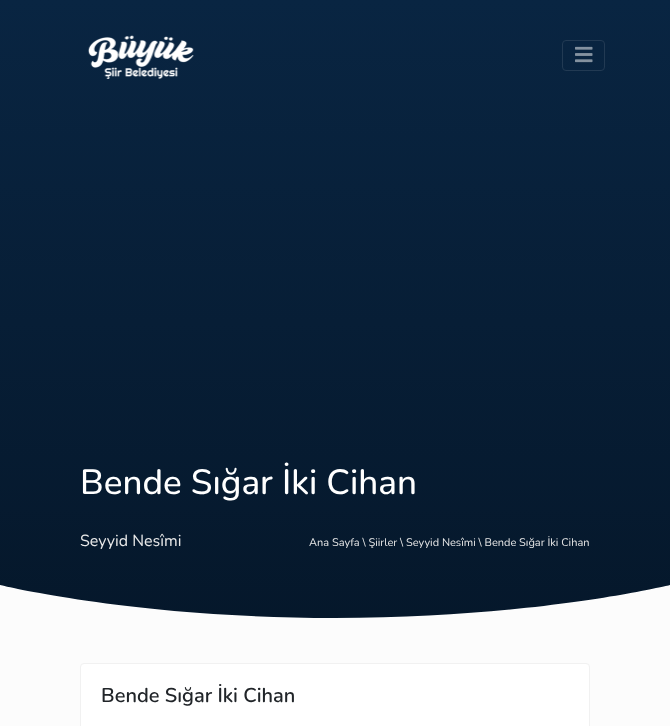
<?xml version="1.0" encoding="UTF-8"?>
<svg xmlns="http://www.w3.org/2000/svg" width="670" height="726">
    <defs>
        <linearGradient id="g1" gradientUnits="userSpaceOnUse" x1="335" y1="643" x2="335" y2="0"><stop offset="0" stop-color="#05172A"/><stop offset="1" stop-color="#092542"/></linearGradient>
        <clipPath id="clip1"><rect x="0" y="585" width="670" height="60"/></clipPath>
    </defs>
    <rect width="100%" height="100%" fill="#FCFCFC"/>
    <rect x="0" y="0" width="670" height="618" fill="url(#g1)"/>
    <image x="88" y="35" width="106" height="44" href="img_01.png"/>
    <rect x="562.5" y="40.5" width="42" height="30" rx="3.5" fill="none" stroke="#223A53"/>
    <image x="575" y="46" width="18" height="17" href="img_02.png"/>
    <text x="80" y="494" font-family="Nunito" font-size="35" font-weight="500" fill="#FFFFFF">Bende Sığar İki Cihan</text>
    <text x="80" y="546" font-family="Nunito" font-size="16" fill="#E9E9E9">Seyyid Nesîmi</text>
    <text x="309" y="546" font-family="Nunito" font-size="11" fill="#E9E9E9">Ana Sayfa \ Şiirler \ Seyyid Nesîmi \ Bende Sığar İki Cihan</text>
    <g clip-path="url(#clip1)">
        <path d="M 0 585 C 0 585 134 618 335 618 C 536 618 670 585 670 585 V 653 H 0 V 586 Z" fill="#FCFCFC"/>
    </g>
    <rect x="80.5" y="663.5" width="509" height="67" rx="3.5" fill="#FFFFFF" stroke="#F1F1F1"/>
    <text x="101" y="702" font-family="Nunito" font-size="20" font-weight="600" fill="#212529">Bende Sığar İki Cihan</text>
</svg>
